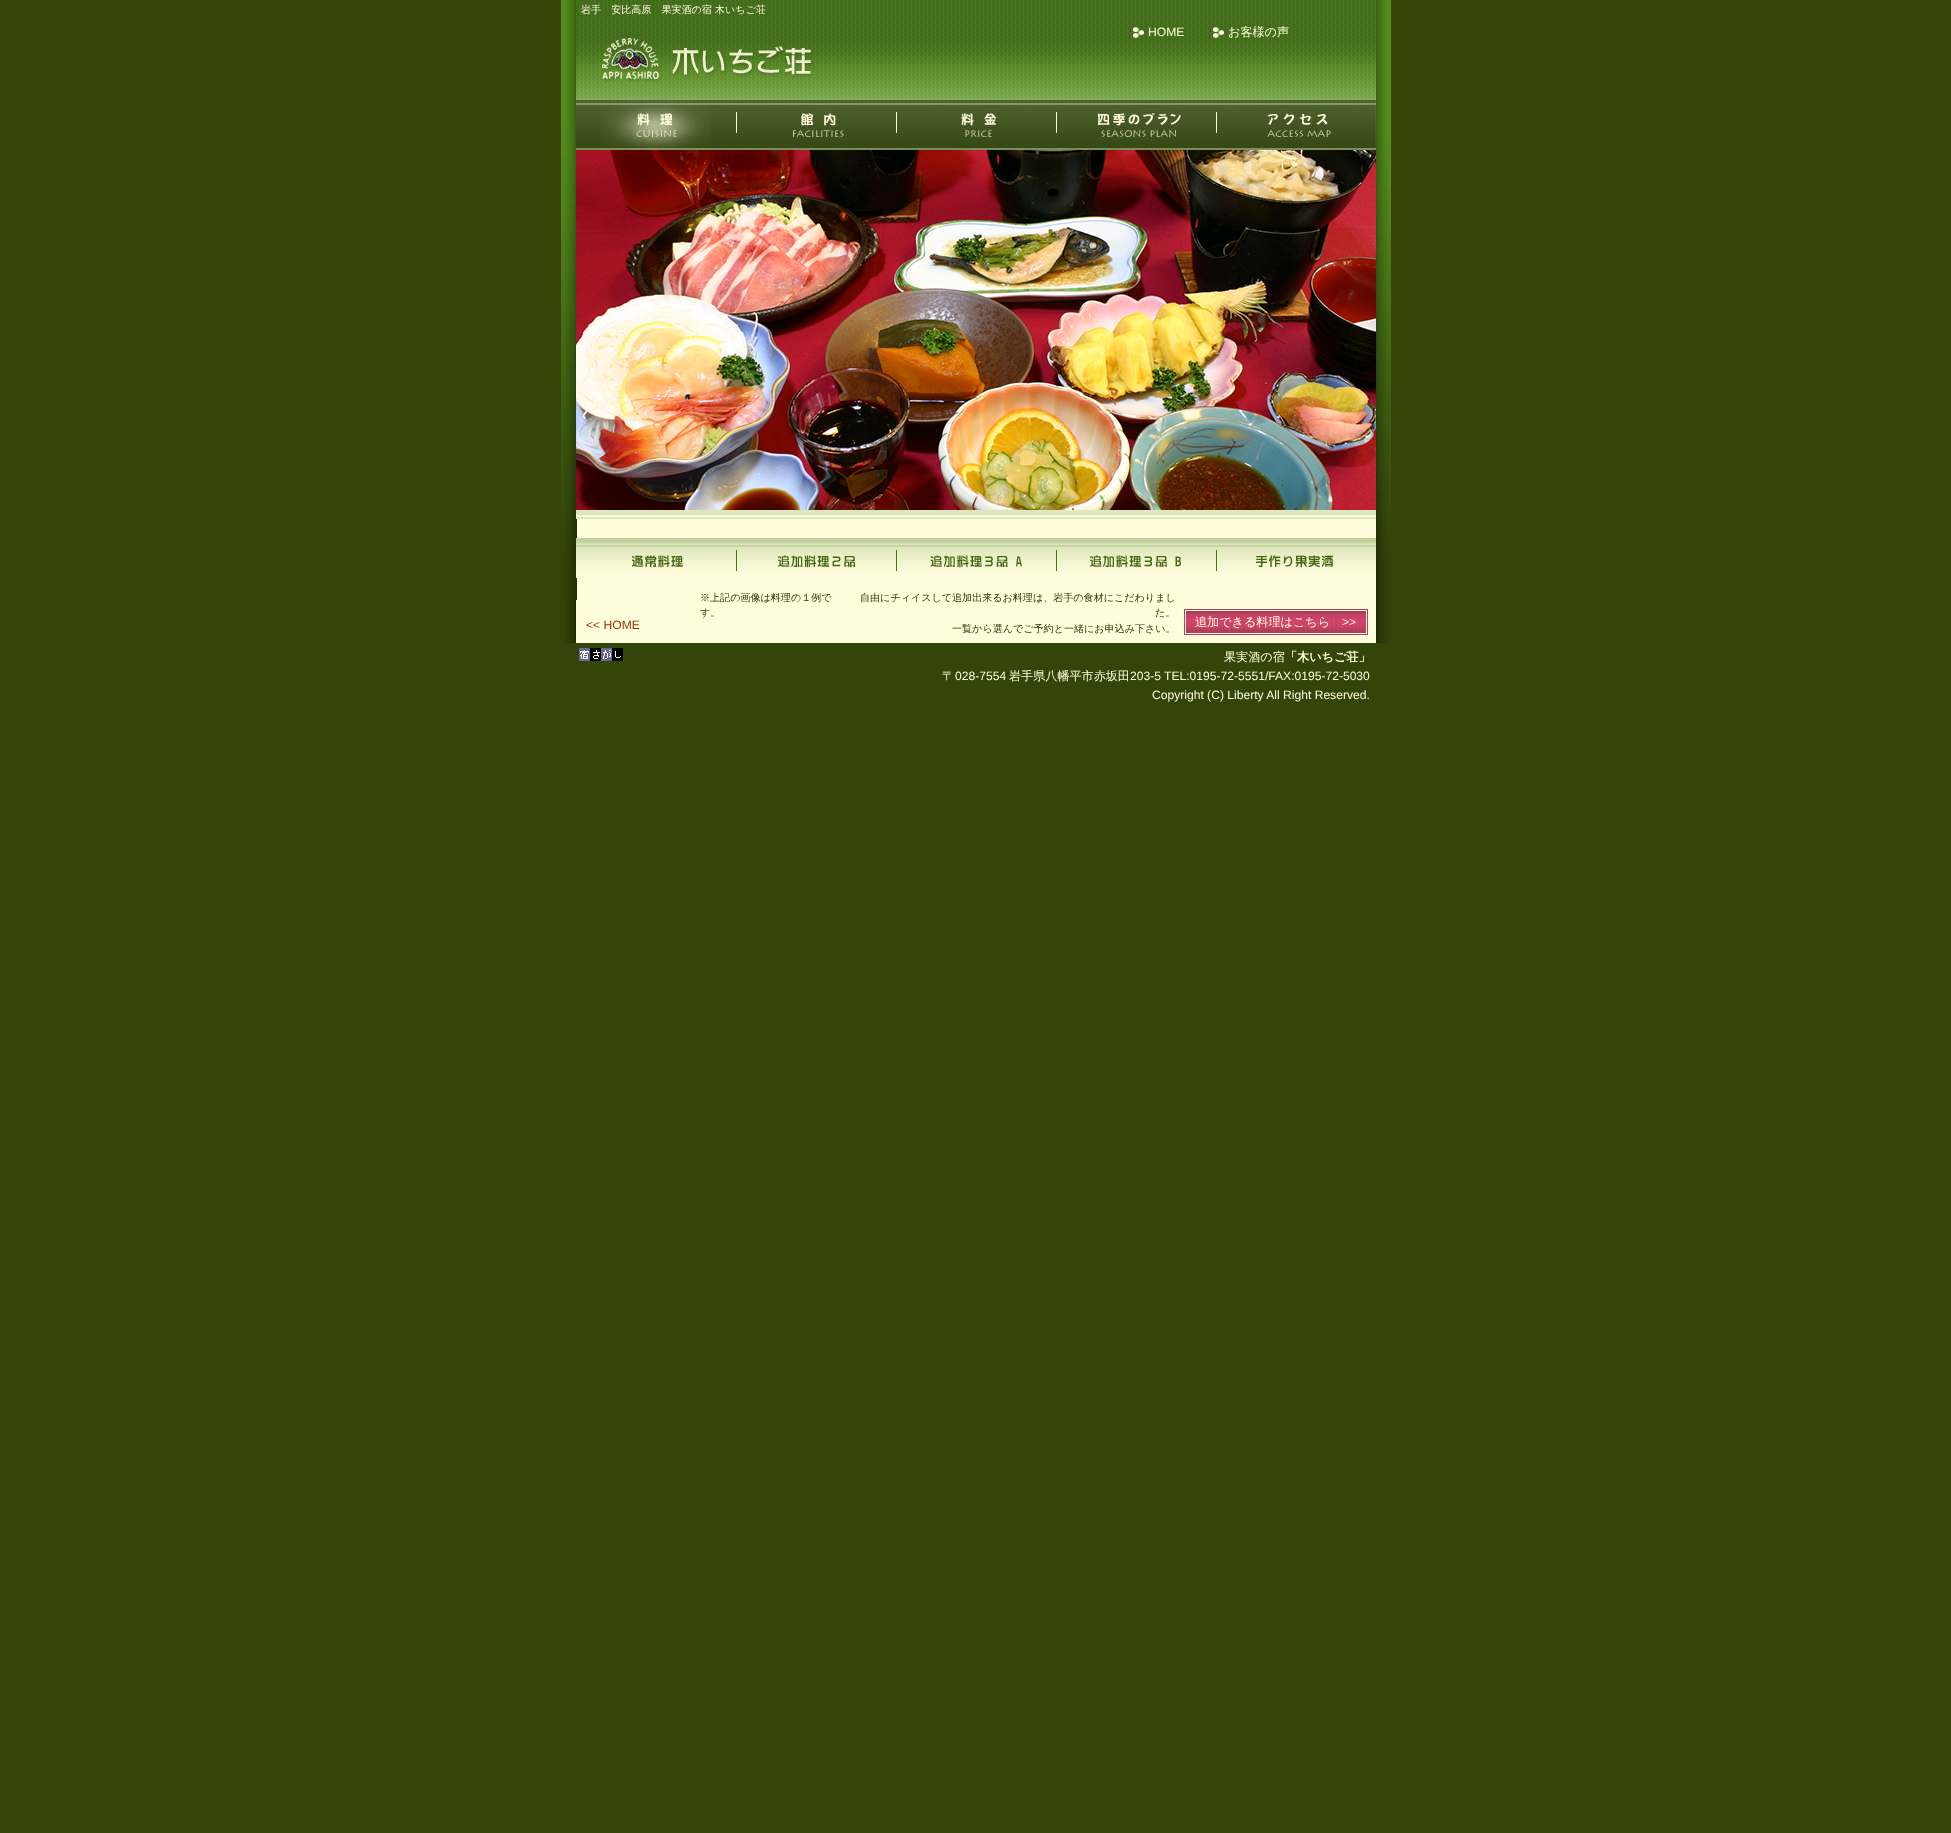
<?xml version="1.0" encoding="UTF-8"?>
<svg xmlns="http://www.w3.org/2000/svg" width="1951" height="1833">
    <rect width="100%" height="100%" fill="#334509"/>
    <image x="565" y="519" width="823" height="124" href="img_01.png"/>
    <image x="561" y="0" width="16" height="600" href="img_02.png"/>
    <image x="1376" y="0" width="15" height="564" href="img_03.png"/>
    <image x="576" y="0" width="800" height="100" href="img_04.png"/>
    <text x="581" y="13" font-family="WenQuanYi Zen Hei" font-size="10.05" font-weight="500" fill="#FFFDDD">岩手　安比高原　果実酒の宿 木いちご荘</text>
    <image x="1133" y="27" width="11" height="11" href="img_05.png"/>
    <text x="1148" y="36" font-family="Liberation Sans" font-size="12.1" fill="#FFFDDD">HOME</text>
    <image x="1213" y="27" width="11" height="11" href="img_05.png"/>
    <text x="1228" y="36" font-family="WenQuanYi Zen Hei" font-size="12.1" font-weight="500" fill="#FFFDDD">お客様の声</text>
    <image x="576" y="100" width="800" height="50" href="img_06.png"/>
    <image x="600" y="100" width="111" height="50" href="img_07.png"/>
    <image x="762" y="100" width="110" height="50" href="img_08.png"/>
    <image x="920" y="100" width="112" height="50" href="img_09.png"/>
    <image x="1080" y="100" width="112" height="50" href="img_10.png"/>
    <image x="1242" y="100" width="110" height="50" href="img_11.png"/>
    <image x="576" y="510" width="800" height="9" href="img_12.png"/>
    <image x="576" y="150" width="800" height="360" href="img_13.png"/>
    <image x="576" y="538" width="800" height="40" href="img_14.png"/>
    <text x="586" y="629" font-family="Liberation Sans" font-size="12.1" fill="#993300">&lt;&lt; HOME</text>
    <text font-family="WenQuanYi Zen Hei" font-size="10.05" font-weight="500" fill="#333300">
        <tspan x="700" y="601">※上記の画像は料理の１例で</tspan>
        <tspan x="700" y="616">す。</tspan>
    </text>
    <text x="860" y="601" font-family="WenQuanYi Zen Hei" font-size="10.05" font-weight="500" fill="#333300">自由にチィイスして追加出来るお料理は、岩手の食材にこだわりまし</text>
    <text x="1155" y="616" font-family="WenQuanYi Zen Hei" font-size="10.05" font-weight="500" fill="#333300">た。</text>
    <text x="952" y="632" font-family="WenQuanYi Zen Hei" font-size="10.05" font-weight="500" fill="#333300">一覧から選んでご予約と一緒にお申込み下さい。</text>
    <rect x="1184" y="609" width="184" height="26" fill="#B43F5A"/>
    <image x="1184" y="611" width="184" height="20" href="img_15.png"/>
    <rect x="1185.5" y="610.5" width="181" height="23" fill="none" stroke="#FFFDDD"/>
    <text x="1195" y="626" font-family="WenQuanYi Zen Hei" font-size="12.1" font-weight="500" fill="#FFFDDD">追加できる料理はこちら</text>
    <text x="1342" y="626" font-family="Liberation Sans" font-size="12.1" fill="#FFFDDD">&gt;&gt;</text>
    <image x="579" y="648" width="44" height="13" href="img_16.png"/>
    <text x="1224" y="661" font-family="WenQuanYi Zen Hei" font-size="12.1" font-weight="500" fill="#FFFDDD">果実酒の宿</text>
    <text x="1285" y="661" font-family="WenQuanYi Zen Hei" font-size="12.1" font-weight="700" fill="#FFFDDD">「木いちご荘」</text>
    <text x="942" y="680" font-family="WenQuanYi Zen Hei" font-size="12.1" font-weight="500" fill="#FFFDDD">〒</text>
    <text x="955" y="680" font-family="Liberation Sans" font-size="12.1" fill="#FFFDDD">028-7554</text>
    <text x="1009" y="680" font-family="WenQuanYi Zen Hei" font-size="12.1" font-weight="500" fill="#FFFDDD">岩手県八幡平市赤坂田</text>
    <text x="1130" y="680" font-family="Liberation Sans" font-size="12.1" fill="#FFFDDD">203-5 TEL:0195-72-5551/FAX:0195-72-5030</text>
    <text x="1152" y="699" font-family="Liberation Sans" font-size="12.1" fill="#FFFDDD">Copyright (C) Liberty All Right Reserved.</text>
</svg>
